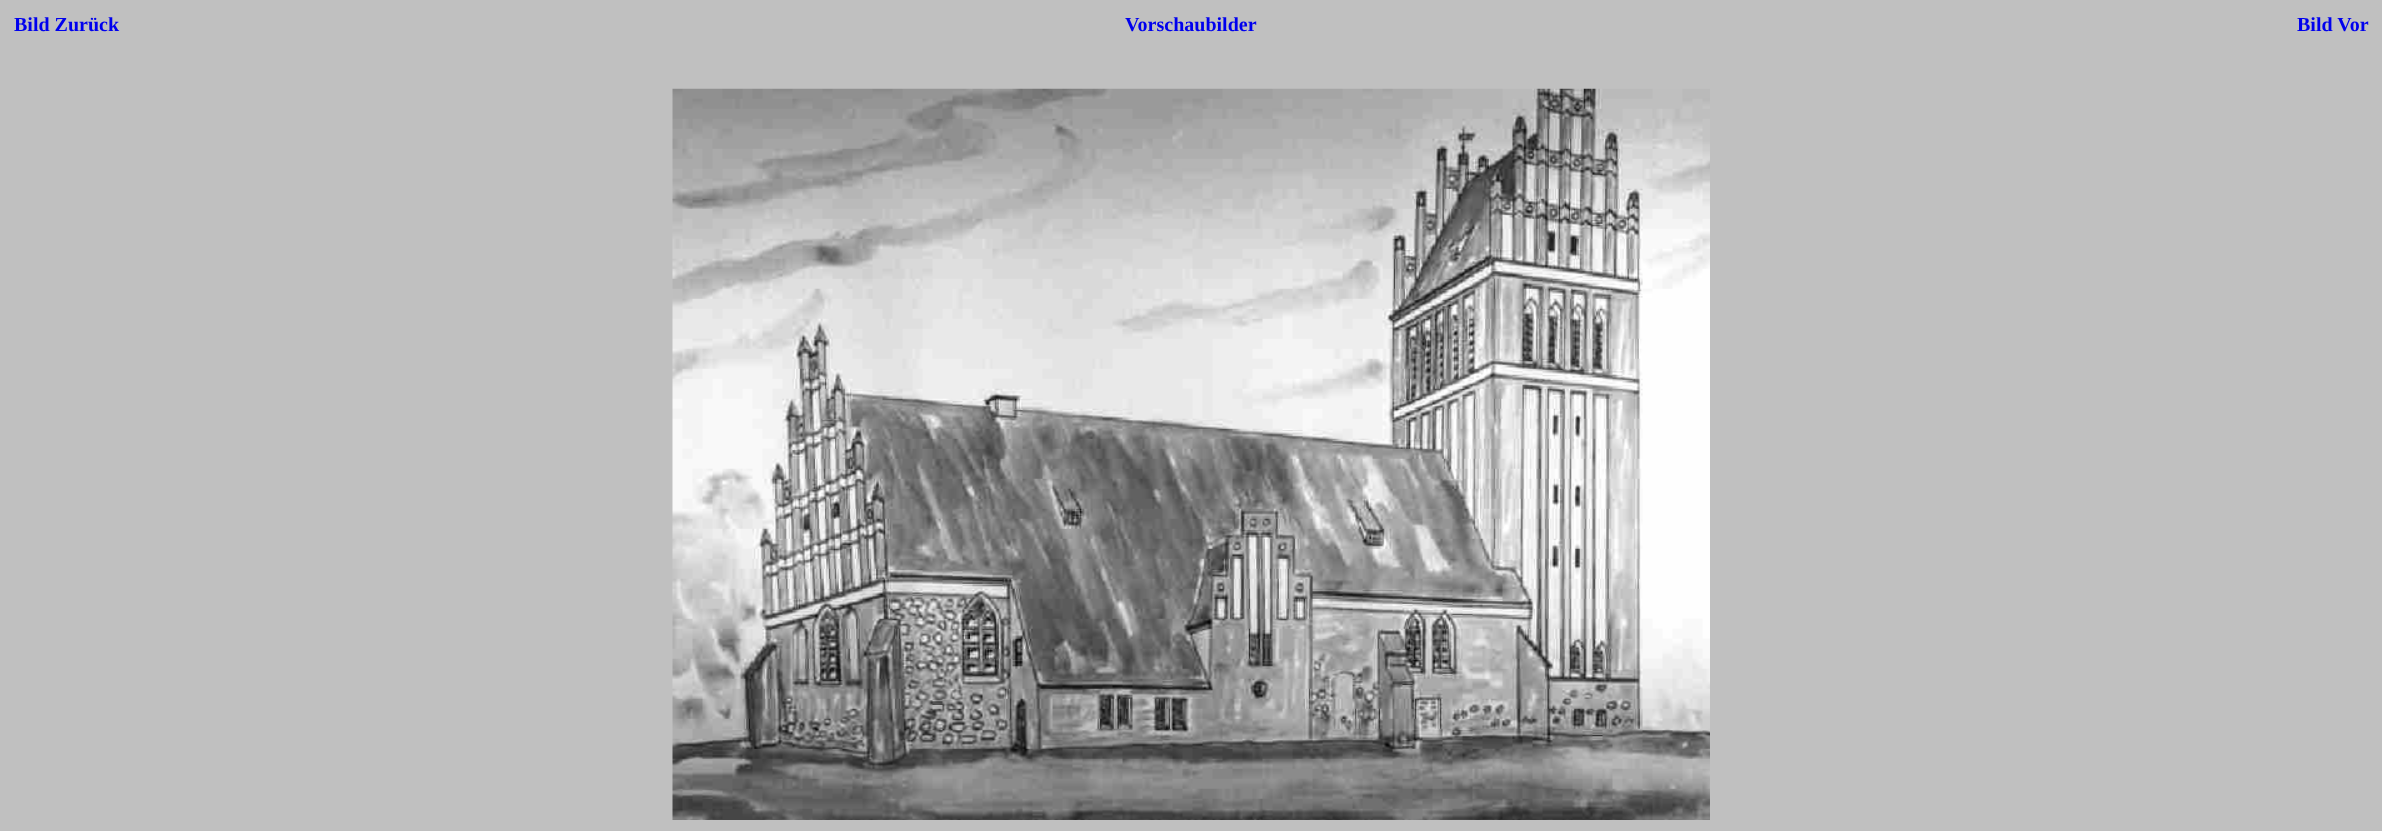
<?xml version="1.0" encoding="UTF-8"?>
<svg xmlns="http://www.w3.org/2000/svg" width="2382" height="831">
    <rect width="100%" height="100%" fill="#C0C0C0"/>
    <text x="14" y="31" font-family="Liberation Serif" font-size="20" font-weight="700" fill="#0000EE">Bild Zurück</text>
    <text x="1125" y="31" font-family="Liberation Serif" font-size="20" font-weight="700" fill="#0000EE">Vorschaubilder</text>
    <text x="2297" y="31" font-family="Liberation Serif" font-size="20" font-weight="700" fill="#0000EE">Bild Vor</text>
    <image x="672" y="88" width="1038" height="732" href="img_01.png"/>
</svg>
